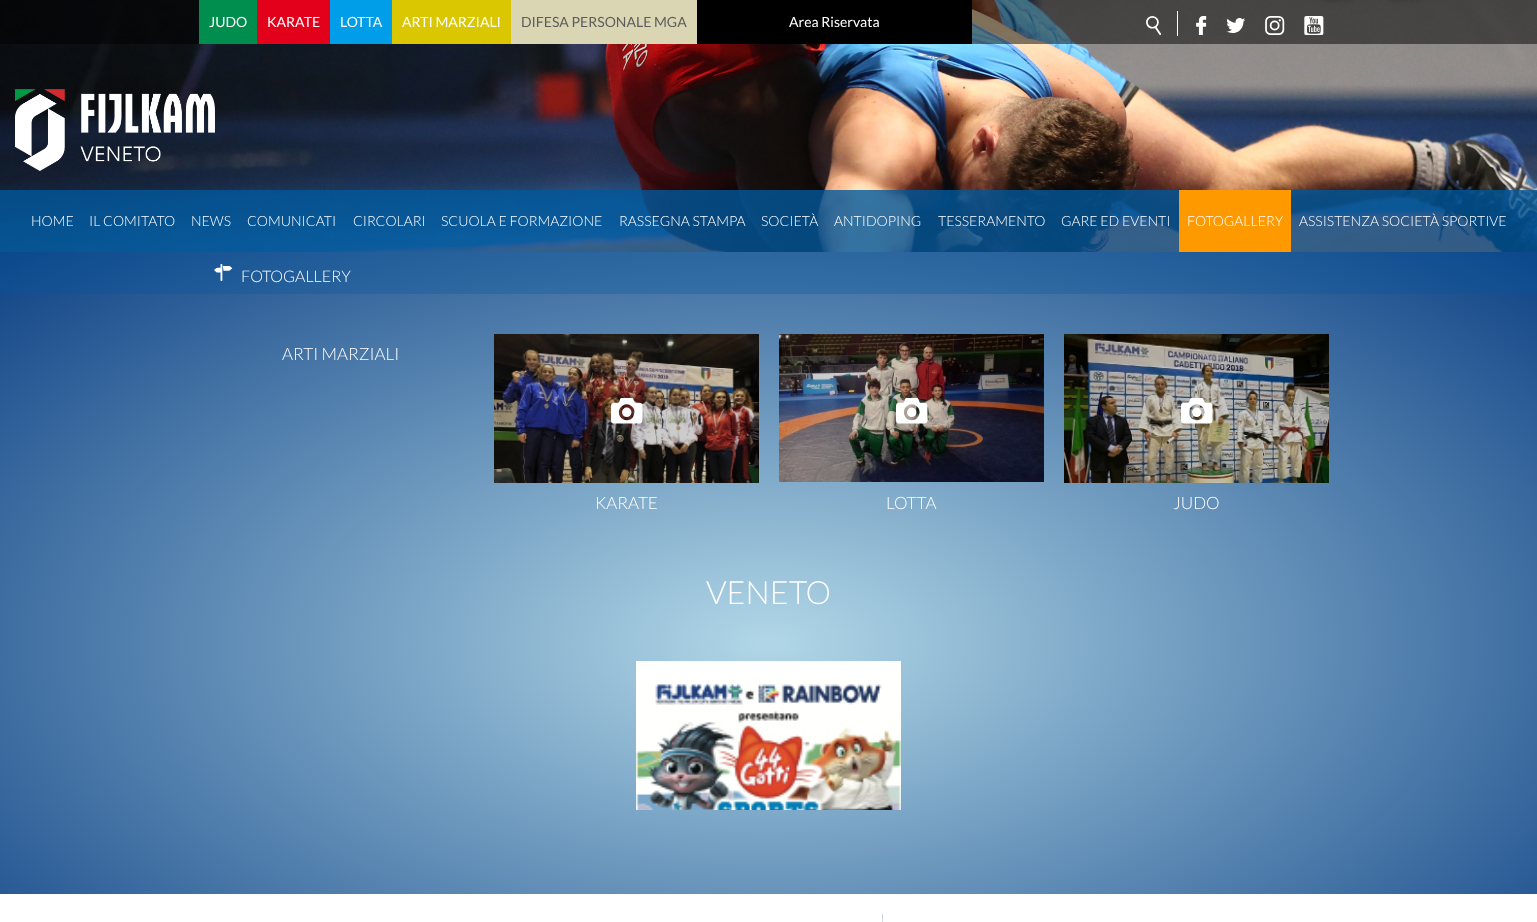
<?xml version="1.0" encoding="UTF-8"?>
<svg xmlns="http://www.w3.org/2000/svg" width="1537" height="922">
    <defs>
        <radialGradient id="g1" gradientUnits="userSpaceOnUse" cx="0" cy="0" r="1" gradientTransform="matrix(1087 0 0 553 769 643)"><stop offset="0" stop-color="#B1D7E7"/><stop offset="1" stop-color="#0F4285"/></radialGradient>
        <radialGradient id="g2" gradientUnits="userSpaceOnUse" cx="0" cy="0" r="1" gradientTransform="matrix(1087 0 0 553 769 643)"><stop offset="0" stop-color="#7CB1D0"/><stop offset="1" stop-color="#0B488C"/></radialGradient>
    </defs>
    <rect width="100%" height="100%" fill="#FFFFFF"/>
    <image x="0" y="0" width="1537" height="252" href="img_06.png"/>
    <rect x="0" y="0" width="1537" height="44" fill="#000000" fill-opacity="0.5"/>
    <rect x="199" y="0" width="58" height="44" fill="#008E4F"/>
    <text x="209" y="27" font-family="Lato" font-size="14" fill="#FFFFFF">JUDO</text>
    <rect x="257" y="0" width="73" height="44" fill="#E2001A"/>
    <text x="267" y="27" font-family="Lato" font-size="14" fill="#FFFFFF">KARATE</text>
    <rect x="330" y="0" width="62" height="44" fill="#009EE9"/>
    <text x="340" y="27" font-family="Lato" font-size="14" fill="#FFFFFF">LOTTA</text>
    <rect x="392" y="0" width="119" height="44" fill="#DAC601"/>
    <text x="402" y="27" font-family="Lato" font-size="14" fill="#FFFFFF">ARTI MARZIALI</text>
    <rect x="511" y="0" width="186" height="44" fill="#DAD6B3"/>
    <text x="521" y="27" font-family="Lato" font-size="14" fill="#5D5D5D">DIFESA PERSONALE MGA</text>
    <rect x="697" y="0" width="275" height="44" fill="#000000"/>
    <text x="789" y="27" font-family="Lato" font-size="14" fill="#FFFFFF">Area Riservata</text>
    <rect x="1177" y="11" width="1" height="25" fill="#FFFFFF"/>
    <image x="1146" y="16" width="16" height="19" href="img_01.png"/>
    <image x="1196" y="16" width="11" height="19" href="img_02.png"/>
    <image x="1226" y="18" width="20" height="15" href="img_03.png"/>
    <image x="1265" y="16" width="20" height="19" href="img_04.png"/>
    <image x="1304" y="16" width="20" height="19" href="img_05.png"/>
    <image x="15" y="89" width="200" height="82" href="img_07.png"/>
    <rect x="0" y="190" width="1537" height="62" fill="#01579B" fill-opacity="0.8"/>
    <text x="31" y="226" font-family="Lato" font-size="14" font-weight="300" fill="#FFFFFF">HOME</text>
    <text x="89" y="226" font-family="Lato" font-size="14" font-weight="300" fill="#FFFFFF">IL COMITATO</text>
    <text x="191" y="226" font-family="Lato" font-size="14" font-weight="300" fill="#FFFFFF">NEWS</text>
    <text x="247" y="226" font-family="Lato" font-size="14" font-weight="300" fill="#FFFFFF">COMUNICATI</text>
    <text x="353" y="226" font-family="Lato" font-size="14" font-weight="300" fill="#FFFFFF">CIRCOLARI</text>
    <text x="441" y="226" font-family="Lato" font-size="14" font-weight="300" fill="#FFFFFF">SCUOLA E FORMAZIONE</text>
    <text x="619" y="226" font-family="Lato" font-size="14" font-weight="300" fill="#FFFFFF">RASSEGNA STAMPA</text>
    <text x="761" y="226" font-family="Lato" font-size="14" font-weight="300" fill="#FFFFFF">SOCIETÀ</text>
    <text x="834" y="226" font-family="Lato" font-size="14" font-weight="300" fill="#FFFFFF">ANTIDOPING</text>
    <text x="938" y="226" font-family="Lato" font-size="14" font-weight="300" fill="#FFFFFF">TESSERAMENTO</text>
    <text x="1061" y="226" font-family="Lato" font-size="14" font-weight="300" fill="#FFFFFF">GARE ED EVENTI</text>
    <rect x="1179" y="190" width="112" height="62" fill="#FF9900"/>
    <text x="1187" y="226" font-family="Lato" font-size="14" font-weight="300" fill="#FFFFFF">FOTOGALLERY</text>
    <text x="1299" y="226" font-family="Lato" font-size="14" font-weight="300" fill="#FFFFFF">ASSISTENZA SOCIETÀ SPORTIVE</text>
    <rect x="0" y="294" width="1537" height="600" fill="url(#g1)"/>
    <rect x="0" y="252" width="1537" height="42" fill="url(#g2)"/>
    <image x="214" y="264" width="19" height="17" href="img_08.png"/>
    <text x="241" y="282" font-family="Lato" font-size="16" font-weight="300" fill="#FFFFFF">FOTOGALLERY</text>
    <text x="282" y="360" font-family="Lato" font-size="17" font-weight="300" fill="#FFFFFF">ARTI MARZIALI</text>
    <image x="494" y="334" width="265" height="149" href="img_09.png"/>
    <image x="611" y="398" width="32" height="26" href="img_10.png"/>
    <text x="595" y="509" font-family="Lato" font-size="17" font-weight="300" fill="#FFFFFF">KARATE</text>
    <image x="779" y="334" width="265" height="148" href="img_11.png"/>
    <image x="896" y="398" width="32" height="26" href="img_12.png"/>
    <text x="886" y="509" font-family="Lato" font-size="17" font-weight="300" fill="#FFFFFF">LOTTA</text>
    <image x="1064" y="334" width="265" height="149" href="img_13.png"/>
    <image x="1181" y="398" width="32" height="26" href="img_14.png"/>
    <text x="1173" y="509" font-family="Lato" font-size="17" font-weight="300" fill="#FFFFFF">JUDO</text>
    <text x="706" y="604" font-family="Lato" font-size="32" font-weight="300" fill="#FFFFFF">VENETO</text>
    <rect x="636" y="661" width="265" height="15" fill="#FFFFFF"/>
    <image x="636" y="676" width="265" height="134" href="img_15.png"/>
    <rect x="882" y="914" width="1" height="8" fill="#CFD8DC"/>
</svg>
